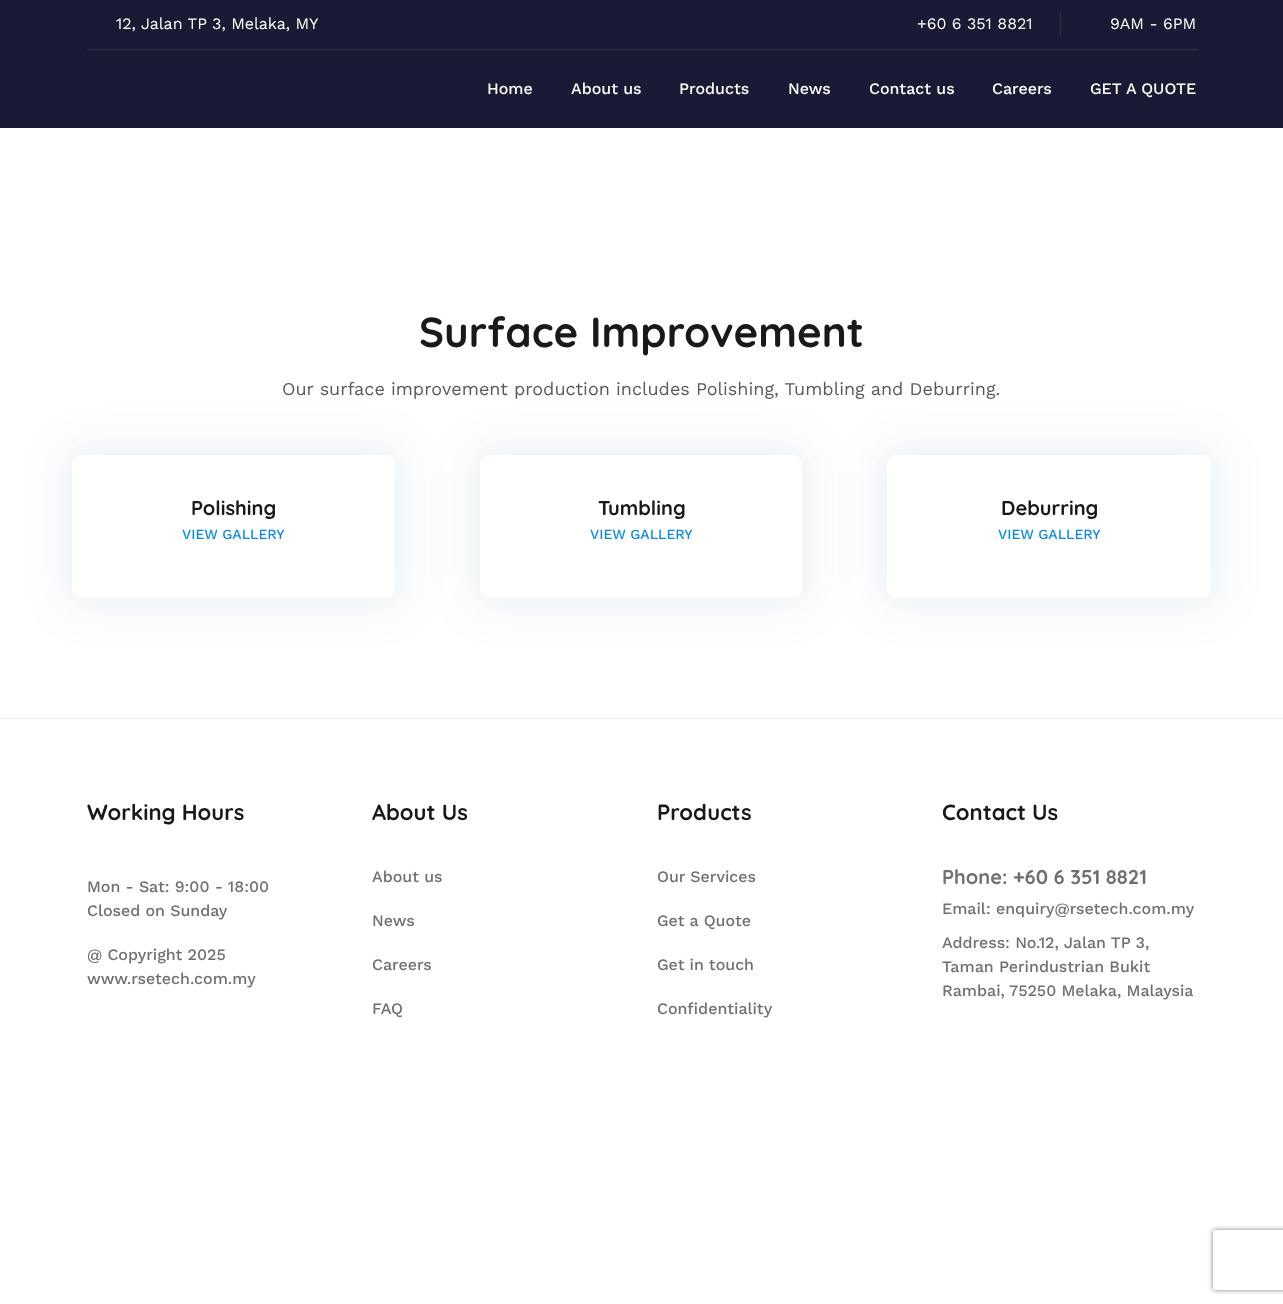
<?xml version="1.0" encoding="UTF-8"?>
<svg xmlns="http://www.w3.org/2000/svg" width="1283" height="1304">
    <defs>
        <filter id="blur1" x="-50%" y="-200%" width="200%" height="500%"><feGaussianBlur stdDeviation="20"/></filter>
        <clipPath id="clip1"><path d="M 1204 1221 H 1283 V 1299 H 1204 Z M 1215 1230 H 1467 C 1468 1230 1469 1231 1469 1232 V 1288 C 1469 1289 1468 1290 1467 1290 H 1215 C 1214 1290 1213 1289 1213 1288 V 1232 C 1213 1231 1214 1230 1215 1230 Z" clip-rule="evenodd"/></clipPath>
        <filter id="blur2" x="-50%" y="-200%" width="200%" height="500%"><feGaussianBlur stdDeviation="2.5"/></filter>
    </defs>
    <rect width="100%" height="100%" fill="#FFFFFF"/>
    <rect x="0" y="0" width="1283" height="128" fill="#181B33"/>
    <rect x="87" y="49" width="1110" height="1" fill="#303248"/>
    <text x="116" y="29" font-family="Work Sans" font-size="16" fill="#FFFFFF">12, Jalan TP 3, Melaka, MY</text>
    <text x="917" y="29" font-family="Work Sans" font-size="16" fill="#FFFFFF">+60 6 351 8821</text>
    <rect x="1060" y="12" width="1" height="24" fill="#303248"/>
    <text x="1110" y="29" font-family="Work Sans" font-size="16" fill="#FFFFFF">9AM - 6PM</text>
    <text x="487" y="94" font-family="Work Sans" font-size="16" font-weight="500" fill="#FFFFFF">Home</text>
    <text x="571" y="94" font-family="Work Sans" font-size="16" font-weight="500" fill="#FFFFFF">About us</text>
    <text x="679" y="94" font-family="Work Sans" font-size="16" font-weight="500" fill="#FFFFFF">Products</text>
    <text x="788" y="94" font-family="Work Sans" font-size="16" font-weight="500" fill="#FFFFFF">News</text>
    <text x="869" y="94" font-family="Work Sans" font-size="16" font-weight="500" fill="#FFFFFF">Contact us</text>
    <text x="992" y="94" font-family="Work Sans" font-size="16" font-weight="500" fill="#FFFFFF">Careers</text>
    <text x="1090" y="94" font-family="Work Sans" font-size="16" font-weight="500" fill="#FFFFFF">GET A QUOTE</text>
    <text x="419" y="347" font-family="Quicksand" font-size="42" font-weight="700" fill="#191919">Surface Improvement</text>
    <text x="282" y="395" font-family="Work Sans" font-size="18" fill="#595959">Our surface improvement production includes Polishing, Tumbling and Deburring.</text>
    <rect x="61" y="444" width="345" height="165" rx="21" fill="#4F769D" fill-opacity="0.1" filter="url(#blur1)"/>
    <rect x="72" y="455" width="323" height="143" rx="10" fill="#FFFFFF"/>
    <text x="191" y="515" font-family="Quicksand" font-size="20" font-weight="700" fill="#191919">Polishing</text>
    <text x="182" y="539" font-family="Work Sans" font-size="14" font-weight="500" fill="#0A8AE6">VIEW GALLERY</text>
    <rect x="469" y="444" width="344" height="165" rx="21" fill="#4F769D" fill-opacity="0.1" filter="url(#blur1)"/>
    <rect x="480" y="455" width="322" height="143" rx="10" fill="#FFFFFF"/>
    <text x="598" y="515" font-family="Quicksand" font-size="20" font-weight="700" fill="#191919">Tumbling</text>
    <text x="590" y="539" font-family="Work Sans" font-size="14" font-weight="500" fill="#0A8AE6">VIEW GALLERY</text>
    <rect x="876" y="444" width="346" height="165" rx="21" fill="#4F769D" fill-opacity="0.1" filter="url(#blur1)"/>
    <rect x="887" y="455" width="324" height="143" rx="10" fill="#FFFFFF"/>
    <text x="1001" y="515" font-family="Quicksand" font-size="20" font-weight="700" fill="#191919">Deburring</text>
    <text x="998" y="539" font-family="Work Sans" font-size="14" font-weight="500" fill="#0A8AE6">VIEW GALLERY</text>
    <rect x="0" y="718" width="1283" height="1" fill="#EBEBEB"/>
    <text x="87" y="820" font-family="Quicksand" font-size="22" font-weight="700" fill="#191919">Working Hours</text>
    <text font-family="Work Sans" font-size="16" font-weight="500" fill="#707070">
        <tspan x="87" y="892">Mon - Sat: 9:00 - 18:00</tspan>
        <tspan x="87" y="916">Closed on Sunday</tspan>
    </text>
    <text font-family="Work Sans" font-size="16" font-weight="500" fill="#707070">
        <tspan x="87" y="960">@ Copyright 2025</tspan>
        <tspan x="87" y="984">www.rsetech.com.my</tspan>
    </text>
    <text x="372" y="820" font-family="Quicksand" font-size="22" font-weight="700" fill="#191919">About Us</text>
    <text x="372" y="882" font-family="Work Sans" font-size="16" font-weight="500" fill="#707070">About us</text>
    <text x="372" y="926" font-family="Work Sans" font-size="16" font-weight="500" fill="#707070">News</text>
    <text x="372" y="970" font-family="Work Sans" font-size="16" font-weight="500" fill="#707070">Careers</text>
    <text x="372" y="1014" font-family="Work Sans" font-size="16" font-weight="500" fill="#707070">FAQ</text>
    <text x="657" y="820" font-family="Quicksand" font-size="22" font-weight="700" fill="#191919">Products</text>
    <text x="657" y="882" font-family="Work Sans" font-size="16" font-weight="500" fill="#707070">Our Services</text>
    <text x="657" y="926" font-family="Work Sans" font-size="16" font-weight="500" fill="#707070">Get a Quote</text>
    <text x="657" y="970" font-family="Work Sans" font-size="16" font-weight="500" fill="#707070">Get in touch</text>
    <text x="657" y="1014" font-family="Work Sans" font-size="16" font-weight="500" fill="#707070">Confidentiality</text>
    <text x="942" y="820" font-family="Quicksand" font-size="22" font-weight="700" fill="#191919">Contact Us</text>
    <text x="942" y="884" font-family="Quicksand" font-size="20" font-weight="700" fill="#707070">Phone: +60 6 351 8821</text>
    <text x="942" y="914" font-family="Work Sans" font-size="16" font-weight="500" fill="#707070">Email: enquiry@rsetech.com.my</text>
    <text font-family="Work Sans" font-size="16" font-weight="500" fill="#707070">
        <tspan x="942" y="948">Address: No.12, Jalan TP 3,</tspan>
        <tspan x="942" y="972">Taman Perindustrian Bukit</tspan>
        <tspan x="942" y="996">Rambai,</tspan>
    </text>
    <text x="1009" y="996" font-family="Work Sans" font-size="16" font-weight="500" fill="#707070">75250 Melaka, Malaysia</text>
    <g clip-path="url(#clip1)">
        <rect x="1213" y="1230" width="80" height="60" rx="2" fill="#808080" filter="url(#blur2)"/>
    </g>
</svg>
